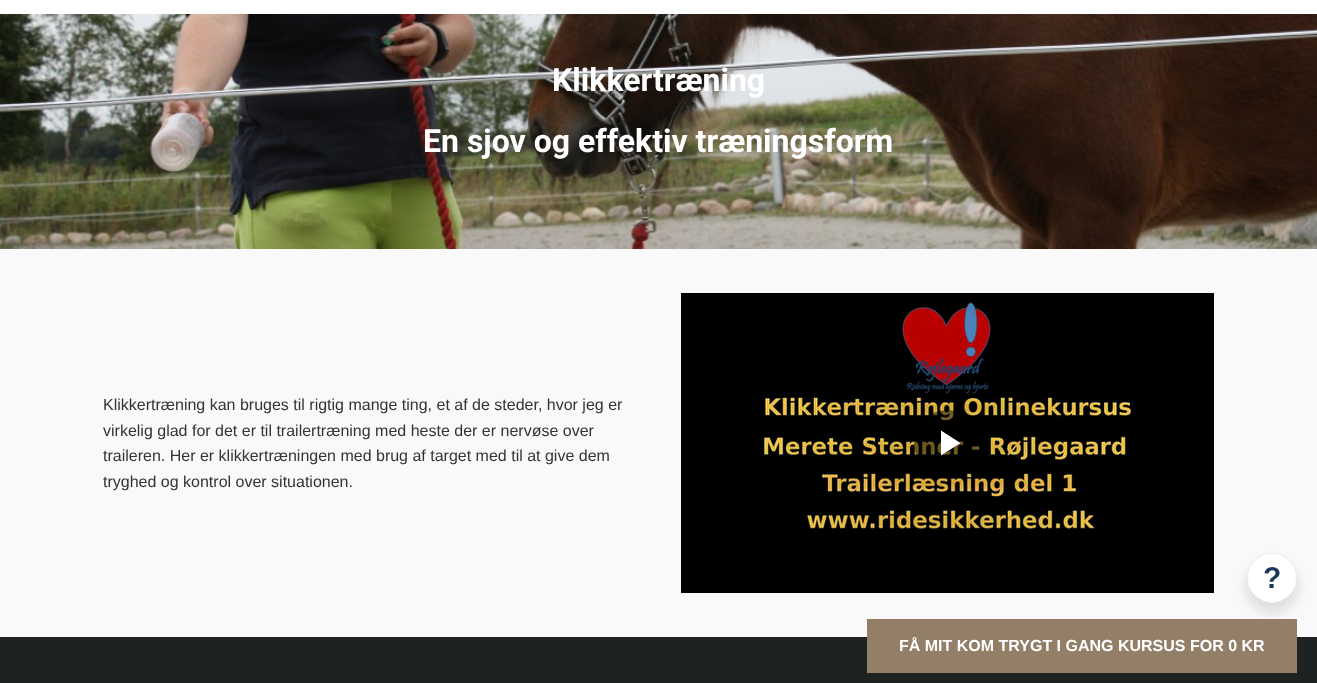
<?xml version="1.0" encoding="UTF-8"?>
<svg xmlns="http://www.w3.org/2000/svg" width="1317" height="683">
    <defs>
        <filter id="blur1" x="-50%" y="-200%" width="200%" height="500%"><feGaussianBlur stdDeviation="6"/></filter>
    </defs>
    <rect width="100%" height="100%" fill="#FFFFFF"/>
    <image x="0" y="14" width="1317" height="235" href="img_01.png"/>
    <text x="552" y="91" font-family="Roboto" font-size="32" font-weight="700" fill="#FFFFFF">Klikkertræning</text>
    <text x="423" y="152" font-family="Roboto" font-size="32" font-weight="700" fill="#FFFFFF">En sjov og effektiv træningsform</text>
    <rect x="0" y="249" width="1317" height="388" fill="#F9F9F9"/>
    <text font-family="Liberation Sans" font-size="16" fill="#343434">
        <tspan x="103" y="410">Klikkertræning kan bruges til rigtig mange ting, et af de steder, hvor jeg er</tspan>
        <tspan x="103" y="436">virkelig glad for det er til trailertræning med heste der er nervøse over</tspan>
        <tspan x="103" y="461">traileren. Her er klikkertræningen med brug af target med til at give dem</tspan>
        <tspan x="103" y="487">tryghed og kontrol over situationen.</tspan>
    </text>
    <image x="681" y="293" width="533" height="300" href="img_02.png"/>
    <image x="764" y="302" width="361" height="228" href="img_03.png"/>
    <circle cx="947.5" cy="443.5" r="33.5" fill="#000000" fill-opacity="0.5"/>
    <path d="M 941 430.5 V 455.5 L 960.5 443 Z" fill="#FFFFFF"/>
    <rect x="0" y="637" width="1317" height="46" fill="#1E2322"/>
    <rect x="1247" y="562" width="50" height="50" rx="25" fill="#22262F" fill-opacity="0.15" filter="url(#blur1)"/>
    <circle cx="1272" cy="578" r="24.5" fill="#FFFFFF" stroke="#EDEEF1"/>
    <text x="1263" y="588" font-family="Liberation Sans" font-size="30" font-weight="700" fill="#1C375A">?</text>
    <rect x="867" y="619" width="430" height="54" fill="#937E67"/>
    <text x="899" y="651" font-family="Liberation Sans" font-size="16" font-weight="700" fill="#FFFFFF">FÅ MIT KOM TRYGT I GANG KURSUS FOR 0 KR</text>
</svg>
